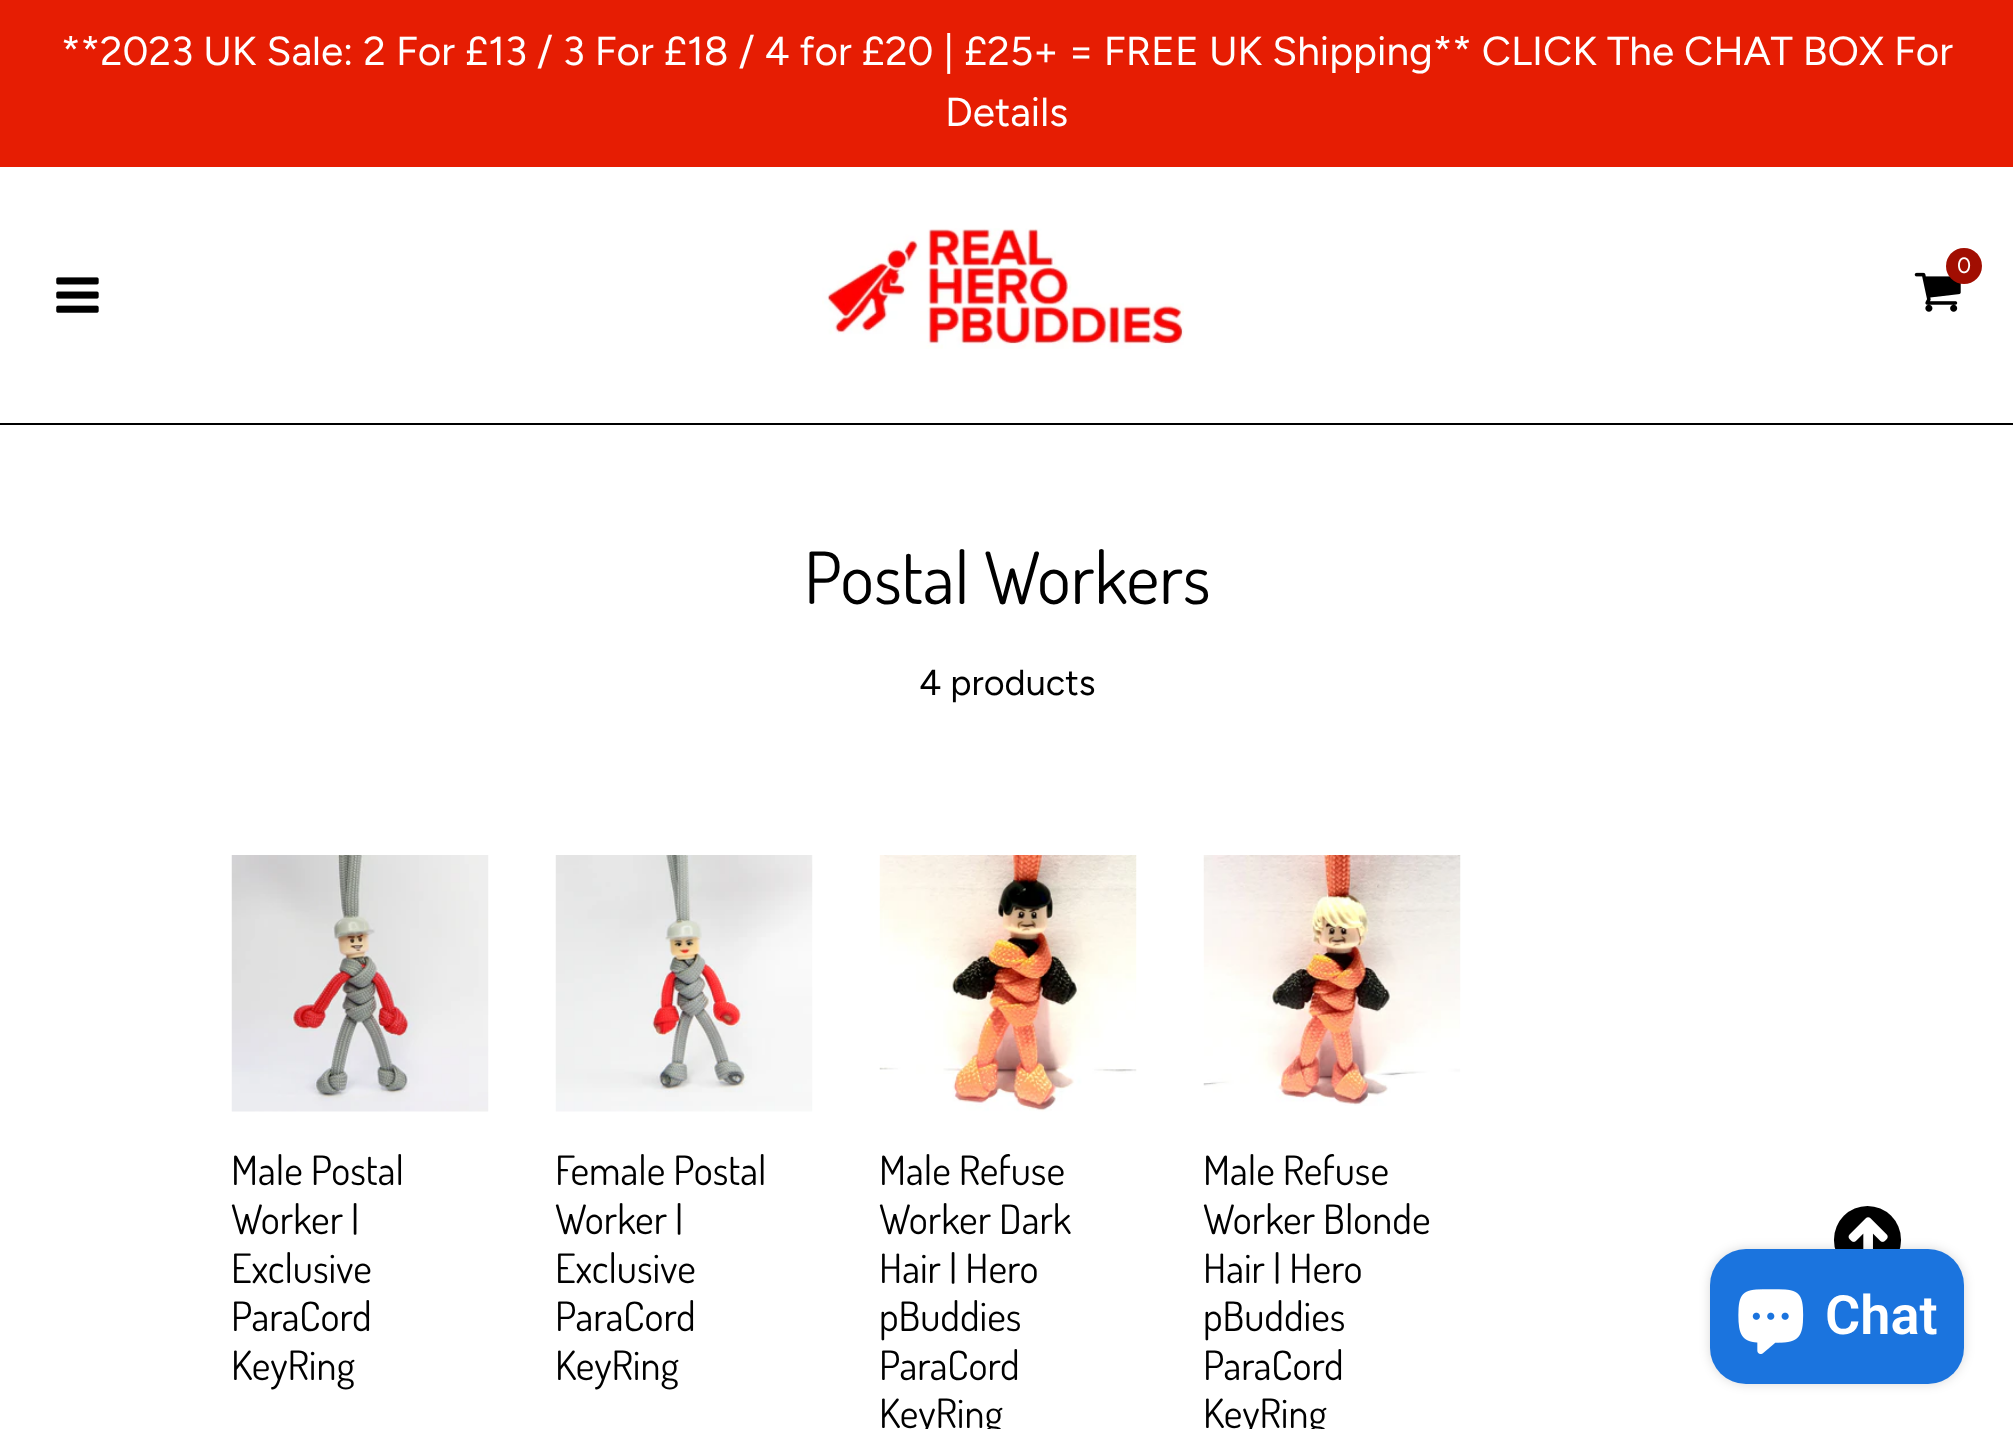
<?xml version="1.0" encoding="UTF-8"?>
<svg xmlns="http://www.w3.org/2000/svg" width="2013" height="1429">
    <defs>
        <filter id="blur1" x="-50%" y="-200%" width="200%" height="500%"><feGaussianBlur stdDeviation="5.5"/></filter>
    </defs>
    <rect width="100%" height="100%" fill="#FFFFFF"/>
    <rect x="0" y="0" width="2013" height="167" fill="#E61D03"/>
    <text x="61" y="65" font-family="Figtree" font-size="40.5" fill="#FFFFFF">**2023 UK Sale: 2 For £13 / 3 For £18 / 4 for £20 | £25+ = FREE UK Shipping** CLICK The CHAT BOX For</text>
    <text x="945" y="126" font-family="Figtree" font-size="40.5" fill="#FFFFFF">Details</text>
    <rect x="0" y="423" width="2013" height="2" fill="#000000"/>
    <image x="822" y="228" width="362" height="121" href="img_01.png"/>
    <image x="1914" y="272" width="47" height="40" href="img_02.png"/>
    <circle cx="1964" cy="266" r="18" fill="#A10E02"/>
    <text x="1957" y="273" font-family="Figtree" font-size="22" fill="#FFFFFF">0</text>
    <image x="56" y="277" width="43" height="36" href="img_03.png"/>
    <text x="804" y="604" font-family="Dosis" font-size="72" fill="#000000">Postal Workers</text>
    <text x="919" y="695" font-family="Figtree" font-size="36" fill="#000000">4 products</text>
    <image x="231" y="855" width="258" height="257" href="img_04.png"/>
    <text font-family="Dosis" font-size="40.5" fill="#000000">
        <tspan x="231" y="1185">Male Postal</tspan>
        <tspan x="231" y="1234">Worker |</tspan>
        <tspan x="231" y="1283">Exclusive</tspan>
        <tspan x="231" y="1331">ParaCord</tspan>
        <tspan x="231" y="1380">KeyRing</tspan>
    </text>
    <image x="555" y="855" width="258" height="257" href="img_05.png"/>
    <text font-family="Dosis" font-size="40.5" fill="#000000">
        <tspan x="555" y="1185">Female Postal</tspan>
        <tspan x="555" y="1234">Worker |</tspan>
        <tspan x="555" y="1283">Exclusive</tspan>
        <tspan x="555" y="1331">ParaCord</tspan>
        <tspan x="555" y="1380">KeyRing</tspan>
    </text>
    <image x="879" y="855" width="258" height="257" href="img_06.png"/>
    <text font-family="Dosis" font-size="40.5" fill="#000000">
        <tspan x="879" y="1185">Male Refuse</tspan>
        <tspan x="879" y="1234">Worker Dark</tspan>
        <tspan x="879" y="1283">Hair | Hero</tspan>
        <tspan x="879" y="1331">pBuddies</tspan>
        <tspan x="879" y="1380">ParaCord</tspan>
        <tspan x="879" y="1428">KeyRing</tspan>
    </text>
    <image x="1203" y="855" width="258" height="251" href="img_07.png"/>
    <text font-family="Dosis" font-size="40.5" fill="#000000">
        <tspan x="1203" y="1185">Male Refuse</tspan>
        <tspan x="1203" y="1234">Worker Blonde</tspan>
        <tspan x="1203" y="1283">Hair | Hero</tspan>
        <tspan x="1203" y="1331">pBuddies</tspan>
        <tspan x="1203" y="1380">ParaCord</tspan>
        <tspan x="1203" y="1428">KeyRing</tspan>
    </text>
    <rect x="1834" y="1206" width="67" height="68" rx="33.5" fill="#000000"/>
    <image x="1848" y="1217" width="40" height="32" href="img_08.png"/>
    <rect x="1710" y="1249" width="254" height="135" rx="36" fill="#000000" fill-opacity="0.15" filter="url(#blur1)"/>
    <rect x="1710" y="1249" width="254" height="135" rx="36" fill="#1B74DE"/>
    <image x="1738" y="1289" width="66" height="65" href="img_09.png"/>
    <text x="1825" y="1334" font-family="Roboto" font-size="54" font-weight="600" fill="#FFFFFF">Chat</text>
</svg>
